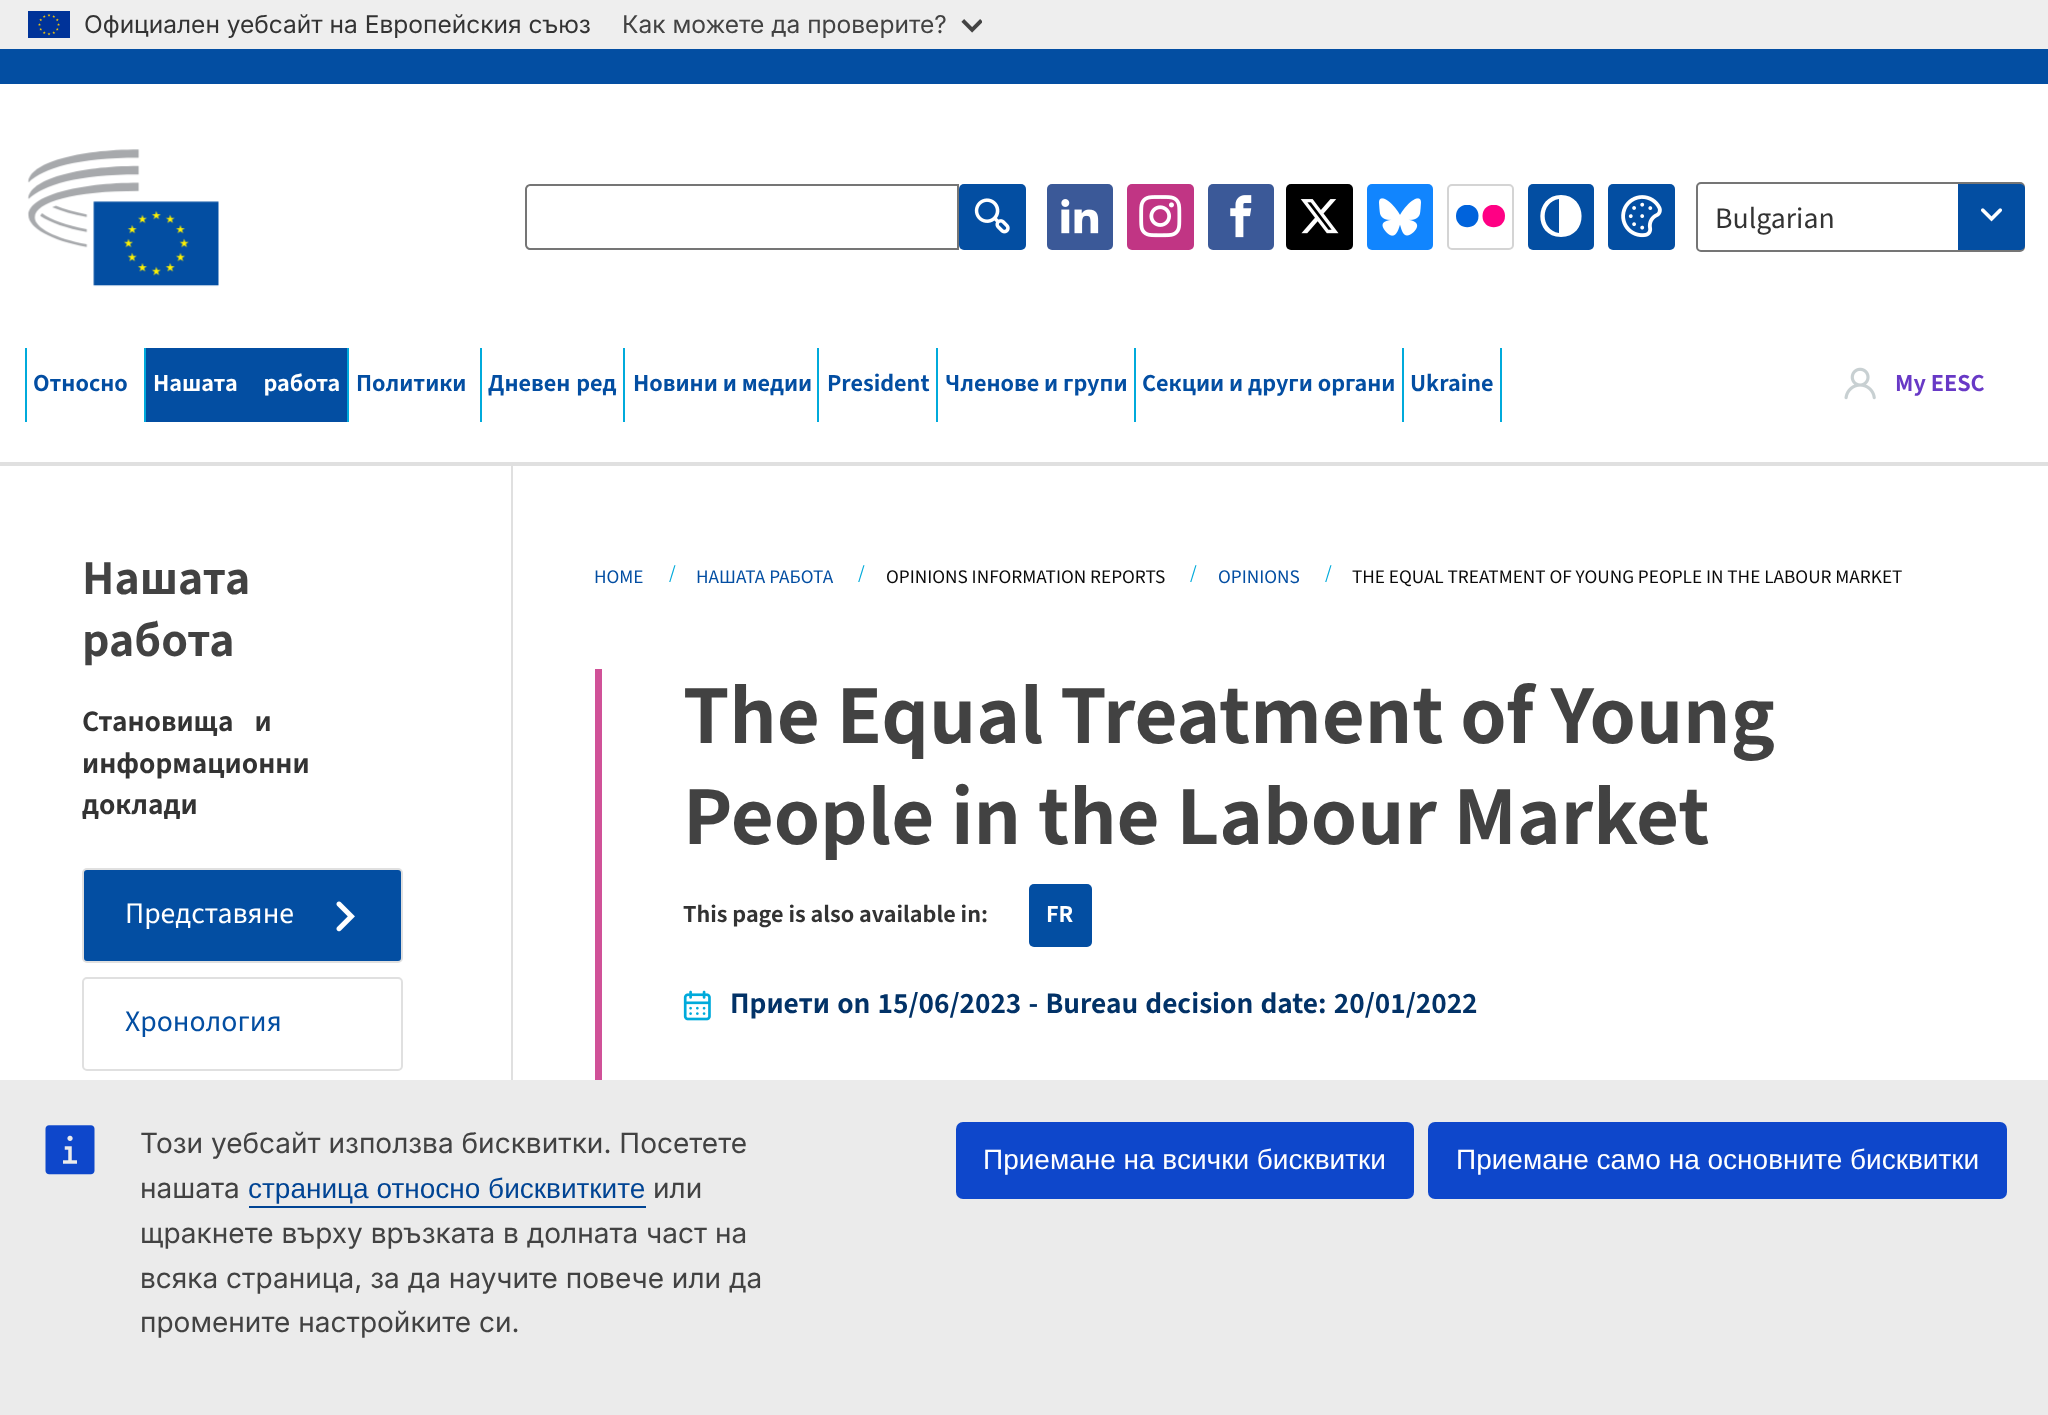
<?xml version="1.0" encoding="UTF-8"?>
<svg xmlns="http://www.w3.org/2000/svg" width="2048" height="1415">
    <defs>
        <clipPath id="clip1"><rect x="1456" y="205" width="49" height="23"/></clipPath>
    </defs>
    <rect width="100%" height="100%" fill="#FFFFFF"/>
    <rect x="0" y="0" width="2048" height="49" fill="#EEEEEE"/>
    <image x="28" y="11" width="42" height="27" href="img_01.png"/>
    <text x="84" y="33" font-family="Inter" font-size="24.5" fill="#333333">Официален уебсайт на Европейския съюз</text>
    <text x="622" y="33" font-family="Inter" font-size="24.5" fill="#424242">Как можете да проверите?</text>
    <image x="961" y="19" width="21" height="14" href="img_02.png"/>
    <rect x="0" y="49" width="2048" height="35" fill="#034EA2"/>
    <rect x="0" y="462" width="2048" height="4" fill="#E0E0E0"/>
    <image x="27" y="149" width="192" height="138" href="img_03.png"/>
    <path d="M 530 185 H 958 V 249 H 530 C 528 249 526 247 526 245 V 189 C 526 187 528 185 530 185 Z" fill="none" stroke="#757575" stroke-width="2"/>
    <rect x="959" y="184" width="67" height="66" rx="5" fill="#034EA2"/>
    <image x="974" y="198" width="36" height="36" href="img_04.png"/>
    <rect x="1047" y="184" width="66" height="66" rx="5" fill="#3B5998"/>
    <image x="1061" y="199" width="38" height="35" href="img_05.png"/>
    <rect x="1127" y="184" width="67" height="66" rx="5" fill="#C13584"/>
    <image x="1139" y="195" width="43" height="43" href="img_06.png"/>
    <rect x="1208" y="184" width="66" height="66" rx="5" fill="#3B5998"/>
    <image x="1230" y="195" width="22" height="43" href="img_07.png"/>
    <rect x="1286" y="184" width="67" height="66" rx="5" fill="#000000"/>
    <image x="1300" y="199" width="39" height="35" href="img_08.png"/>
    <rect x="1367" y="184" width="66" height="66" rx="5" fill="#1185FE"/>
    <image x="1379" y="198" width="42" height="38" href="img_09.png"/>
    <rect x="1448" y="185" width="65" height="64" rx="4" fill="none" stroke="#D4D4D4" stroke-width="2"/>
    <g clip-path="url(#clip1)">
        <path d="M 1482.5 216 C 1482.5 231 1505 231 1505 216 C 1505 201 1482.5 201 1482.5 216 Z" fill="#FF0084"/>
        <path d="M 1456 216 C 1456 231 1478.5 231 1478.5 216 C 1478.5 201 1456 201 1456 216 Z" fill="#0063DC"/>
    </g>
    <rect x="1528" y="184" width="66" height="66" rx="5" fill="#034EA2"/>
    <path d="M 1561 195 C 1534 195 1533 237 1561 237 C 1589 237 1588 195 1561 195 Z M 1559 233 C 1540 230 1540 202 1559 199 Z" fill="#FFFFFF"/>
    <rect x="1608" y="184" width="67" height="66" rx="5" fill="#034EA2"/>
    <image x="1621" y="195" width="41" height="43" href="img_10.png"/>
    <rect x="1697" y="183" width="327" height="68" rx="4" fill="none" stroke="#757575" stroke-width="2"/>
    <text x="1715" y="228" font-family="'Source Sans 3'" font-size="29.75" fill="#333333">Bulgarian</text>
    <path d="M 1958 184 H 2020 C 2023 184 2025 186 2025 189 V 245 C 2025 248 2023 250 2020 250 H 1958 Z" fill="#034EA2"/>
    <image x="1981" y="208" width="21" height="14" href="img_11.png"/>
    <rect x="25" y="348" width="2" height="74" fill="#00AADB"/>
    <text x="33" y="391" font-family="'Source Sans 3'" font-size="24.4" font-weight="600" fill="#034EA2">Относно</text>
    <rect x="146" y="348" width="201" height="74" fill="#034EA2"/>
    <rect x="144" y="348" width="2" height="74" fill="#00AADB"/>
    <text x="153" y="391" word-spacing="21" font-family="'Source Sans 3'" font-size="24.4" font-weight="600" fill="#FFFFFF">Нашата работа</text>
    <rect x="347" y="348" width="2" height="74" fill="#00AADB"/>
    <text x="356" y="391" font-family="'Source Sans 3'" font-size="24.4" font-weight="600" fill="#034EA2">Политики</text>
    <rect x="480" y="348" width="2" height="74" fill="#00AADB"/>
    <text x="488" y="391" word-spacing="1" font-family="'Source Sans 3'" font-size="24.4" font-weight="600" fill="#034EA2">Дневен ред</text>
    <rect x="623" y="348" width="2" height="74" fill="#00AADB"/>
    <text x="633" y="391" font-family="'Source Sans 3'" font-size="24.4" font-weight="600" fill="#034EA2">Новини и медии</text>
    <rect x="817" y="348" width="2" height="74" fill="#00AADB"/>
    <text x="827" y="391" font-family="'Source Sans 3'" font-size="24.4" font-weight="600" fill="#034EA2">President</text>
    <rect x="936" y="348" width="2" height="74" fill="#00AADB"/>
    <text x="945" y="391" font-family="'Source Sans 3'" font-size="24.4" font-weight="600" fill="#034EA2">Членове и групи</text>
    <rect x="1134" y="348" width="2" height="74" fill="#00AADB"/>
    <text x="1142" y="391" font-family="'Source Sans 3'" font-size="24.4" font-weight="600" fill="#034EA2">Секции и други органи</text>
    <rect x="1500" y="348" width="2" height="74" fill="#00AADB"/>
    <rect x="1402" y="348" width="2" height="74" fill="#00AADB"/>
    <text x="1410" y="391" font-family="'Source Sans 3'" font-size="24.4" font-weight="600" fill="#034EA2">Ukraine</text>
    <image x="1844" y="367" width="32" height="33" href="img_12.png"/>
    <text x="1895" y="391" font-family="'Source Sans 3'" font-size="24.4" font-weight="600" fill="#6839C6">My EESC</text>
    <rect x="511" y="466" width="2" height="614" fill="#E0E0E0"/>
    <text font-family="'Source Sans 3'" font-size="48.5" font-weight="600" fill="#424242">
        <tspan x="82" y="594">Нашата</tspan>
        <tspan x="82" y="656">работа</tspan>
    </text>
    <text font-family="'Source Sans 3'" font-size="29.7" font-weight="600" fill="#333333">
        <tspan x="82" y="731" word-spacing="15">Становища и</tspan>
        <tspan x="82" y="773">информационни</tspan>
        <tspan x="82" y="814">доклади</tspan>
    </text>
    <rect x="83" y="869" width="319" height="93" rx="4" fill="#034EA2" stroke="#E0E0E0" stroke-width="2"/>
    <text x="125" y="923" font-family="'Source Sans 3'" font-size="29.7" fill="#FFFFFF">Представяне</text>
    <image x="336" y="901" width="19" height="31" href="img_13.png"/>
    <rect x="83" y="978" width="319" height="92" rx="4" fill="none" stroke="#E0E0E0" stroke-width="2"/>
    <text x="125" y="1031" font-family="'Source Sans 3'" font-size="29.7" fill="#034EA2">Хронология</text>
    <text x="594" y="583" font-family="'Source Sans 3'" font-size="19.25" fill="#034EA2">HOME</text>
    <text x="669" y="579" font-family="'Source Sans 3'" font-size="19.25" fill="#00AADB">/</text>
    <text x="696" y="583" font-family="'Source Sans 3'" font-size="19.25" fill="#034EA2">НАШАТА РАБОТА</text>
    <text x="858" y="579" font-family="'Source Sans 3'" font-size="19.25" fill="#00AADB">/</text>
    <text x="886" y="583" font-family="'Source Sans 3'" font-size="19.25" fill="#0A0A0A">OPINIONS INFORMATION REPORTS</text>
    <text x="1190" y="579" font-family="'Source Sans 3'" font-size="19.25" fill="#00AADB">/</text>
    <text x="1218" y="583" font-family="'Source Sans 3'" font-size="19.25" fill="#034EA2">OPINIONS</text>
    <text x="1325" y="579" font-family="'Source Sans 3'" font-size="19.25" fill="#00AADB">/</text>
    <text x="1352" y="583" font-family="'Source Sans 3'" font-size="19.25" fill="#0A0A0A">THE EQUAL TREATMENT OF YOUNG PEOPLE IN THE LABOUR MARKET</text>
    <rect x="595" y="669" width="7" height="411" fill="#D05198"/>
    <text font-family="'Source Sans 3'" font-size="84" font-weight="600" fill="#424242">
        <tspan x="683" y="743">The Equal Treatment of Young</tspan>
        <tspan x="683" y="844">People in the Labour Market</tspan>
    </text>
    <text x="683" y="922" font-family="'Source Sans 3'" font-size="24.4" font-weight="600" fill="#333333">This page is also available in:</text>
    <rect x="1029" y="884" width="63" height="63" rx="5" fill="#034EA2"/>
    <text x="1046" y="922" font-family="'Source Sans 3'" font-size="24.4" font-weight="600" fill="#FFFFFF">FR</text>
    <image x="683" y="990" width="28" height="31" href="img_14.png"/>
    <text x="730" y="1013" word-spacing="1.25" font-family="'Source Sans 3'" font-size="29.7" font-weight="600" fill="#023267">Приети on 15/06/2023 - Bureau decision date: 20/01/2022</text>
    <rect x="0" y="1080" width="2048" height="335" fill="#EBEBEB"/>
    <image x="45" y="1125" width="50" height="50" href="img_15.png"/>
    <text font-family="Inter" font-size="28" fill="#424242">
        <tspan x="140" y="1153">Този уебсайт използва бисквитки. Посетете</tspan>
        <tspan x="140" y="1198">нашата</tspan>
    </text>
    <text x="248" y="1198" font-family="Liberation Sans" font-size="28" fill="#004494">страница относно бисквитките</text>
    <rect x="249" y="1206" width="397" height="2" fill="#004494"/>
    <text x="653" y="1198" font-family="Inter" font-size="28" fill="#424242">или</text>
    <text font-family="Inter" font-size="28" fill="#424242">
        <tspan x="140" y="1243">щракнете върху връзката в долната част на</tspan>
        <tspan x="140" y="1288">всяка страница, за да научите повече или да</tspan>
        <tspan x="140" y="1332">промените настройките си.</tspan>
    </text>
    <rect x="956" y="1122" width="458" height="77" rx="7" fill="#0E47CB"/>
    <text x="983" y="1169" font-family="Liberation Sans" font-size="28" fill="#FFFFFF">Приемане на всички бисквитки</text>
    <rect x="1428" y="1122" width="579" height="77" rx="7" fill="#0E47CB"/>
    <text x="1456" y="1169" font-family="Liberation Sans" font-size="28" fill="#FFFFFF">Приемане само на основните бисквитки</text>
</svg>
